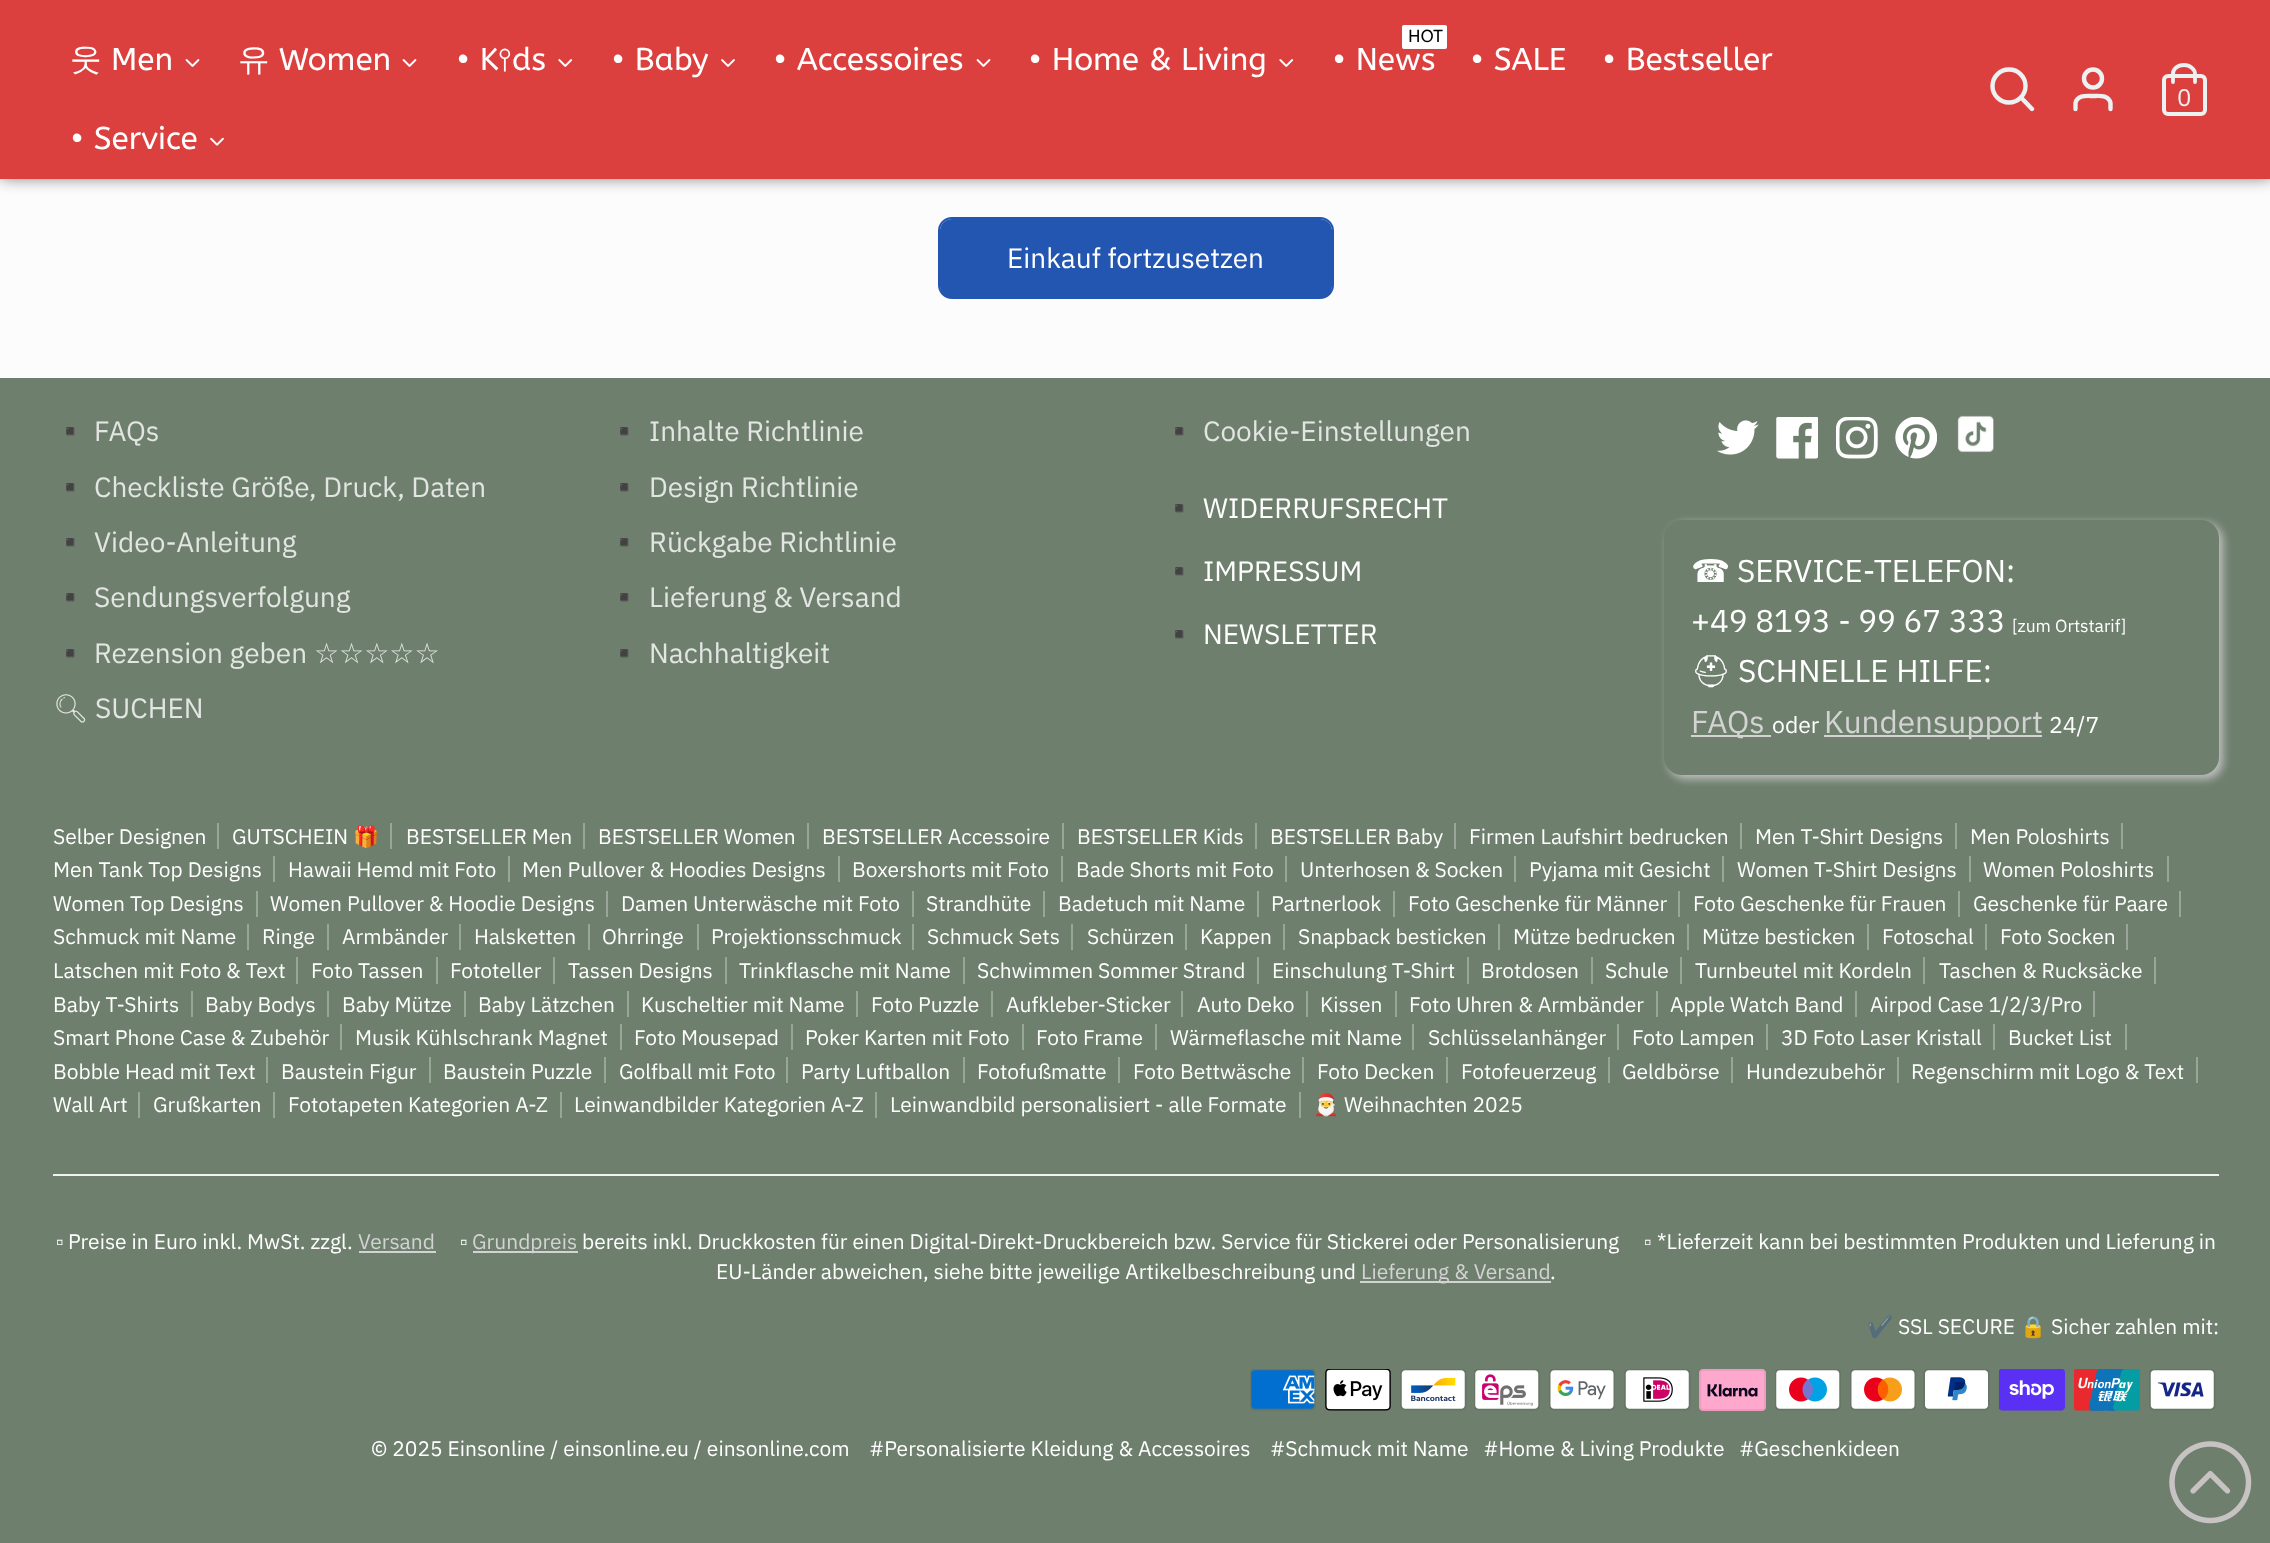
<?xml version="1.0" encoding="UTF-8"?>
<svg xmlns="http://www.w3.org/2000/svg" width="2270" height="1543">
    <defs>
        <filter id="blur1" x="-50%" y="-200%" width="200%" height="500%"><feGaussianBlur stdDeviation="9"/></filter>
        <filter id="blur2" x="-50%" y="-200%" width="200%" height="500%"><feGaussianBlur stdDeviation="4.5"/></filter>
    </defs>
    <rect width="100%" height="100%" fill="#6E7F6D"/>
    <rect x="0" y="179" width="2270" height="199" fill="#FCFCFC"/>
    <rect x="0" y="-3" width="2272" height="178" fill="#000000" fill-opacity="0.75" filter="url(#blur1)"/>
    <rect x="0" y="0" width="2270" height="179" fill="#DC403E"/>
    <text x="70" y="70" font-family="WenQuanYi Zen Hei" font-size="31.5" font-weight="500" fill="#FFFFFF">웃</text>
    <text x="111" y="70" font-family="ABeeZee" font-size="31.5" fill="#FFFFFF">Men</text>
    <image x="185" y="59" width="15" height="8" href="img_01.png"/>
    <text x="238" y="70" font-family="WenQuanYi Zen Hei" font-size="31.5" font-weight="500" fill="#FFFFFF">유</text>
    <text x="279" y="70" font-family="ABeeZee" font-size="31.5" fill="#FFFFFF">Women</text>
    <image x="402" y="59" width="15" height="8" href="img_01.png"/>
    <text x="456" y="70" font-family="ABeeZee" font-size="31.5" fill="#FFFFFF">• K</text>
    <text x="498" y="70" font-family="FreeSerif" font-size="31.5" fill="#FFFFFF">⫯</text>
    <text x="512" y="70" font-family="ABeeZee" font-size="31.5" fill="#FFFFFF">ds</text>
    <image x="558" y="59" width="15" height="8" href="img_02.png"/>
    <text x="611" y="70" font-family="ABeeZee" font-size="31.5" fill="#FFFFFF">• Baby</text>
    <image x="721" y="59" width="14" height="8" href="img_03.png"/>
    <text x="773" y="70" font-family="ABeeZee" font-size="31.5" fill="#FFFFFF">• Accessoires</text>
    <image x="976" y="59" width="15" height="8" href="img_01.png"/>
    <text x="1028" y="70" font-family="ABeeZee" font-size="31.5" fill="#FFFFFF">• Home &amp; Living</text>
    <image x="1279" y="59" width="15" height="8" href="img_02.png"/>
    <rect x="1402" y="25" width="45" height="24" rx="2" fill="#FFFFFF"/>
    <text x="1408" y="42" font-family="ABeeZee" font-size="17.5" fill="#000000">HOT</text>
    <text x="1332" y="70" font-family="ABeeZee" font-size="31.5" fill="#FFFFFF">• News</text>
    <text x="1470" y="70" font-family="ABeeZee" font-size="31.5" fill="#FFFFFF">• SALE</text>
    <text x="1602" y="70" font-family="ABeeZee" font-size="31.5" fill="#FFFFFF">• Bestseller</text>
    <text x="70" y="149" font-family="ABeeZee" font-size="31.5" fill="#FFFFFF">• Service</text>
    <image x="210" y="137" width="14" height="9" href="img_04.png"/>
    <circle cx="2009" cy="86" r="16.5" fill="none" stroke="#ECF1F2" stroke-width="4.4"/>
    <path d="M 2032 109 L 2021 97.5" fill="none" stroke="#ECF1F2" stroke-width="4.4" stroke-linecap="round"/>
    <path d="M 2110.5 109 V 103 C 2108.5 94.5 2099.5 96 2093 96 C 2086.5 96 2077.5 94.5 2075.5 103 V 109" fill="none" stroke="#ECF1F2" stroke-width="4.4" stroke-linecap="round"/>
    <circle cx="2093" cy="78.5" r="9" fill="none" stroke="#ECF1F2" stroke-width="4.4"/>
    <rect x="2164" y="76" width="41" height="38" rx="4" fill="none" stroke="#ECF1F2" stroke-width="4"/>
    <path d="M 2173 82 V 74 C 2172.5 69.5 2177.5 65 2184 65 C 2190 65 2195 69.5 2195 74 V 82" fill="none" stroke="#ECF1F2" stroke-width="3.8" stroke-linecap="round"/>
    <text x="2177" y="106" font-family="IBM Plex Sans" font-size="24" fill="#ECF1F2">0</text>
    <rect x="939" y="218" width="394" height="80" rx="13" fill="none" stroke="#2256B1" stroke-width="2"/>
    <rect x="940" y="219" width="392" height="79" rx="12" fill="#2256B1"/>
    <text x="1007" y="268" font-family="IBM Plex Sans" font-size="28" fill="#FFFFFF">Einkauf fortzusetzen</text>
    <text x="53" y="441" font-family="Noto Color Emoji" font-size="28" fill="#E2E5E2">▪️</text>
    <text x="94" y="441" font-family="IBM Plex Sans" font-size="28" fill="#E2E5E2">FAQs</text>
    <text x="53" y="497" font-family="Noto Color Emoji" font-size="28" fill="#E2E5E2">▪️</text>
    <text x="94" y="497" font-family="IBM Plex Sans" font-size="28" fill="#E2E5E2">Checkliste Größe, Druck, Daten</text>
    <text x="53" y="552" font-family="Noto Color Emoji" font-size="28" fill="#E2E5E2">▪️</text>
    <text x="94" y="552" font-family="IBM Plex Sans" font-size="28" fill="#E2E5E2">Video-Anleitung</text>
    <text x="53" y="607" font-family="Noto Color Emoji" font-size="28" fill="#E2E5E2">▪️</text>
    <text x="94" y="607" font-family="IBM Plex Sans" font-size="28" fill="#E2E5E2">Sendungsverfolgung</text>
    <text x="53" y="663" font-family="Noto Color Emoji" font-size="28" fill="#E2E5E2">▪️</text>
    <text x="94" y="663" font-family="IBM Plex Sans" font-size="28" fill="#E2E5E2">Rezension geben</text>
    <text x="314" y="663" font-family="DejaVu Sans" font-size="28" fill="#E2E5E2">☆☆☆☆☆</text>
    <text x="53" y="718" font-family="Noto Emoji" font-size="28" fill="#E2E5E2">🔍︎</text>
    <text x="95" y="718" font-family="IBM Plex Sans" font-size="28" fill="#E2E5E2">SUCHEN</text>
    <text x="607" y="441" font-family="Noto Color Emoji" font-size="28" fill="#E2E5E2">▪️</text>
    <text x="649" y="441" font-family="IBM Plex Sans" font-size="28" fill="#E2E5E2">Inhalte Richtlinie</text>
    <text x="607" y="497" font-family="Noto Color Emoji" font-size="28" fill="#E2E5E2">▪️</text>
    <text x="649" y="497" font-family="IBM Plex Sans" font-size="28" fill="#E2E5E2">Design Richtlinie</text>
    <text x="607" y="552" font-family="Noto Color Emoji" font-size="28" fill="#E2E5E2">▪️</text>
    <text x="649" y="552" font-family="IBM Plex Sans" font-size="28" fill="#E2E5E2">Rückgabe Richtlinie</text>
    <text x="607" y="607" font-family="Noto Color Emoji" font-size="28" fill="#E2E5E2">▪️</text>
    <text x="649" y="607" font-family="IBM Plex Sans" font-size="28" fill="#E2E5E2">Lieferung &amp; Versand</text>
    <text x="607" y="663" font-family="Noto Color Emoji" font-size="28" fill="#E2E5E2">▪️</text>
    <text x="649" y="663" font-family="IBM Plex Sans" font-size="28" fill="#E2E5E2">Nachhaltigkeit</text>
    <text x="1162" y="441" font-family="Noto Color Emoji" font-size="28" fill="#E2E5E2">▪️</text>
    <text x="1203" y="441" font-family="IBM Plex Sans" font-size="28" fill="#E2E5E2">Cookie-Einstellungen</text>
    <text x="1162" y="518" font-family="Noto Color Emoji" font-size="28" fill="#FFFFFF">▪️</text>
    <text x="1203" y="518" font-family="IBM Plex Sans" font-size="28" fill="#FFFFFF">WIDERRUFSRECHT</text>
    <text x="1162" y="581" font-family="Noto Color Emoji" font-size="28" fill="#FFFFFF">▪️</text>
    <text x="1203" y="581" font-family="IBM Plex Sans" font-size="28" fill="#FFFFFF">IMPRESSUM</text>
    <text x="1162" y="644" font-family="Noto Color Emoji" font-size="28" fill="#FFFFFF">▪️</text>
    <text x="1203" y="644" font-family="IBM Plex Sans" font-size="28" fill="#FFFFFF">NEWSLETTER</text>
    <image x="1717" y="420" width="42" height="35" href="img_05.png"/>
    <image x="1776" y="417" width="42" height="42" href="img_06.png"/>
    <image x="1836" y="417" width="42" height="42" href="img_07.png"/>
    <image x="1895" y="417" width="42" height="42" href="img_08.png"/>
    <image x="1957" y="415" width="37" height="38" href="img_09.png"/>
    <rect x="1668" y="523" width="555" height="256" rx="18" fill="#C0C0C0" filter="url(#blur2)"/>
    <rect x="1664" y="520" width="555" height="255" rx="18" fill="#6E7F6D"/>
    <text x="1691" y="582" font-family="DejaVu Sans" font-size="31.5" fill="#FFFFFF">☎</text>
    <text x="1737" y="582" font-family="IBM Plex Sans" font-size="31.5" fill="#FFFFFF">SERVICE-TELEFON:</text>
    <text x="1691" y="632" font-family="IBM Plex Sans" font-size="31.5" fill="#FFFFFF">+49 8193 - 99 67 333</text>
    <text x="2012" y="632" font-family="IBM Plex Sans" font-size="17.5" fill="#FFFFFF">[zum Ortstarif]</text>
    <text x="1691" y="682" font-family="Noto Emoji" font-size="31.5" fill="#FFFFFF">⛑</text>
    <text x="1738" y="682" font-family="IBM Plex Sans" font-size="31.5" fill="#FFFFFF">SCHNELLE HILFE:</text>
    <rect x="1691" y="735" width="80" height="2" fill="#D3D3D3"/>
    <text x="1691" y="733" font-family="IBM Plex Sans" font-size="31.5" fill="#D3D3D3">FAQs</text>
    <text x="1772" y="733" font-family="IBM Plex Sans" font-size="23" fill="#FFFFFF">oder</text>
    <rect x="1824" y="735" width="218" height="2" fill="#D3D3D3"/>
    <text x="1824" y="733" font-family="IBM Plex Sans" font-size="31.5" fill="#D3D3D3">Kundensupport</text>
    <text x="2049" y="733" font-family="IBM Plex Sans" font-size="23" fill="#FFFFFF">24/7</text>
    <text x="53" y="844" font-family="IBM Plex Sans" font-size="21" fill="#FFFFFF">Selber Designen</text>
    <rect x="217" y="823" width="2" height="26" fill="#9AA599"/>
    <text x="232" y="844" font-family="IBM Plex Sans" font-size="21" fill="#FFFFFF">GUTSCHEIN</text>
    <text x="353" y="844" font-family="Noto Color Emoji" font-size="21" fill="#FFFFFF">🎁</text>
    <rect x="390" y="823" width="2" height="26" fill="#9AA599"/>
    <text x="406" y="844" font-family="IBM Plex Sans" font-size="21" fill="#FFFFFF">BESTSELLER Men</text>
    <rect x="583" y="823" width="2" height="26" fill="#9AA599"/>
    <text x="598" y="844" font-family="IBM Plex Sans" font-size="21" fill="#FFFFFF">BESTSELLER Women</text>
    <rect x="807" y="823" width="2" height="26" fill="#9AA599"/>
    <text x="822" y="844" font-family="IBM Plex Sans" font-size="21" fill="#FFFFFF">BESTSELLER Accessoire</text>
    <rect x="1062" y="823" width="2" height="26" fill="#9AA599"/>
    <text x="1077" y="844" font-family="IBM Plex Sans" font-size="21" fill="#FFFFFF">BESTSELLER Kids</text>
    <rect x="1255" y="823" width="2" height="26" fill="#9AA599"/>
    <text x="1270" y="844" font-family="IBM Plex Sans" font-size="21" fill="#FFFFFF">BESTSELLER Baby</text>
    <rect x="1454" y="823" width="2" height="26" fill="#9AA599"/>
    <text x="1469" y="844" font-family="IBM Plex Sans" font-size="21" fill="#FFFFFF">Firmen Laufshirt bedrucken</text>
    <rect x="1740" y="823" width="2" height="26" fill="#9AA599"/>
    <text x="1755" y="844" font-family="IBM Plex Sans" font-size="21" fill="#FFFFFF">Men T-Shirt Designs</text>
    <rect x="1955" y="823" width="2" height="26" fill="#9AA599"/>
    <text x="1970" y="844" font-family="IBM Plex Sans" font-size="21" fill="#FFFFFF">Men Poloshirts</text>
    <rect x="2121" y="823" width="2" height="26" fill="#9AA599"/>
    <text x="53" y="877" font-family="IBM Plex Sans" font-size="21" fill="#FFFFFF">Men Tank Top Designs</text>
    <rect x="273" y="856" width="2" height="26" fill="#9AA599"/>
    <text x="288" y="877" font-family="IBM Plex Sans" font-size="21" fill="#FFFFFF">Hawaii Hemd mit Foto</text>
    <rect x="508" y="856" width="2" height="26" fill="#9AA599"/>
    <text x="522" y="877" font-family="IBM Plex Sans" font-size="21" fill="#FFFFFF">Men Pullover &amp; Hoodies Designs</text>
    <rect x="838" y="856" width="2" height="26" fill="#9AA599"/>
    <text x="852" y="877" font-family="IBM Plex Sans" font-size="21" fill="#FFFFFF">Boxershorts mit Foto</text>
    <rect x="1061" y="856" width="2" height="26" fill="#9AA599"/>
    <text x="1076" y="877" font-family="IBM Plex Sans" font-size="21" fill="#FFFFFF">Bade Shorts mit Foto</text>
    <rect x="1285" y="856" width="2" height="26" fill="#9AA599"/>
    <text x="1300" y="877" font-family="IBM Plex Sans" font-size="21" fill="#FFFFFF">Unterhosen &amp; Socken</text>
    <rect x="1514" y="856" width="2" height="26" fill="#9AA599"/>
    <text x="1529" y="877" font-family="IBM Plex Sans" font-size="21" fill="#FFFFFF">Pyjama mit Gesicht</text>
    <rect x="1722" y="856" width="2" height="26" fill="#9AA599"/>
    <text x="1737" y="877" font-family="IBM Plex Sans" font-size="21" fill="#FFFFFF">Women T-Shirt Designs</text>
    <rect x="1969" y="856" width="2" height="26" fill="#9AA599"/>
    <text x="1983" y="877" font-family="IBM Plex Sans" font-size="21" fill="#FFFFFF">Women Poloshirts</text>
    <rect x="2167" y="856" width="2" height="26" fill="#9AA599"/>
    <text x="53" y="911" font-family="IBM Plex Sans" font-size="21" fill="#FFFFFF">Women Top Designs</text>
    <rect x="256" y="891" width="2" height="26" fill="#9AA599"/>
    <text x="270" y="911" font-family="IBM Plex Sans" font-size="21" fill="#FFFFFF">Women Pullover &amp; Hoodie Designs</text>
    <rect x="606" y="891" width="2" height="26" fill="#9AA599"/>
    <text x="621" y="911" font-family="IBM Plex Sans" font-size="21" fill="#FFFFFF">Damen Unterwäsche mit Foto</text>
    <rect x="912" y="891" width="2" height="26" fill="#9AA599"/>
    <text x="926" y="911" font-family="IBM Plex Sans" font-size="21" fill="#FFFFFF">Strandhüte</text>
    <rect x="1043" y="891" width="2" height="26" fill="#9AA599"/>
    <text x="1058" y="911" font-family="IBM Plex Sans" font-size="21" fill="#FFFFFF">Badetuch mit Name</text>
    <rect x="1257" y="891" width="2" height="26" fill="#9AA599"/>
    <text x="1271" y="911" font-family="IBM Plex Sans" font-size="21" fill="#FFFFFF">Partnerlook</text>
    <rect x="1393" y="891" width="2" height="26" fill="#9AA599"/>
    <text x="1408" y="911" font-family="IBM Plex Sans" font-size="21" fill="#FFFFFF">Foto Geschenke für Männer</text>
    <rect x="1678" y="891" width="2" height="26" fill="#9AA599"/>
    <text x="1693" y="911" font-family="IBM Plex Sans" font-size="21" fill="#FFFFFF">Foto Geschenke für Frauen</text>
    <rect x="1958" y="891" width="2" height="26" fill="#9AA599"/>
    <text x="1973" y="911" font-family="IBM Plex Sans" font-size="21" fill="#FFFFFF">Geschenke für Paare</text>
    <rect x="2179" y="891" width="2" height="26" fill="#9AA599"/>
    <text x="53" y="944" font-family="IBM Plex Sans" font-size="21" fill="#FFFFFF">Schmuck mit Name</text>
    <rect x="247" y="924" width="2" height="26" fill="#9AA599"/>
    <text x="262" y="944" font-family="IBM Plex Sans" font-size="21" fill="#FFFFFF">Ringe</text>
    <rect x="327" y="924" width="2" height="26" fill="#9AA599"/>
    <text x="342" y="944" font-family="IBM Plex Sans" font-size="21" fill="#FFFFFF">Armbänder</text>
    <rect x="459" y="924" width="2" height="26" fill="#9AA599"/>
    <text x="474" y="944" font-family="IBM Plex Sans" font-size="21" fill="#FFFFFF">Halsketten</text>
    <rect x="588" y="924" width="2" height="26" fill="#9AA599"/>
    <text x="602" y="944" font-family="IBM Plex Sans" font-size="21" fill="#FFFFFF">Ohrringe</text>
    <rect x="697" y="924" width="2" height="26" fill="#9AA599"/>
    <text x="711" y="944" font-family="IBM Plex Sans" font-size="21" fill="#FFFFFF">Projektionsschmuck</text>
    <rect x="912" y="924" width="2" height="26" fill="#9AA599"/>
    <text x="927" y="944" font-family="IBM Plex Sans" font-size="21" fill="#FFFFFF">Schmuck Sets</text>
    <rect x="1071" y="924" width="2" height="26" fill="#9AA599"/>
    <text x="1087" y="944" font-family="IBM Plex Sans" font-size="21" fill="#FFFFFF">Schürzen</text>
    <rect x="1185" y="924" width="2" height="26" fill="#9AA599"/>
    <text x="1200" y="944" font-family="IBM Plex Sans" font-size="21" fill="#FFFFFF">Kappen</text>
    <rect x="1283" y="924" width="2" height="26" fill="#9AA599"/>
    <text x="1298" y="944" font-family="IBM Plex Sans" font-size="21" fill="#FFFFFF">Snapback besticken</text>
    <rect x="1498" y="924" width="2" height="26" fill="#9AA599"/>
    <text x="1513" y="944" font-family="IBM Plex Sans" font-size="21" fill="#FFFFFF">Mütze bedrucken</text>
    <rect x="1687" y="924" width="2" height="26" fill="#9AA599"/>
    <text x="1702" y="944" font-family="IBM Plex Sans" font-size="21" fill="#FFFFFF">Mütze besticken</text>
    <rect x="1867" y="924" width="2" height="26" fill="#9AA599"/>
    <text x="1882" y="944" font-family="IBM Plex Sans" font-size="21" fill="#FFFFFF">Fotoschal</text>
    <rect x="1985" y="924" width="2" height="26" fill="#9AA599"/>
    <text x="2000" y="944" font-family="IBM Plex Sans" font-size="21" fill="#FFFFFF">Foto Socken</text>
    <rect x="2126" y="924" width="2" height="26" fill="#9AA599"/>
    <text x="53" y="978" font-family="IBM Plex Sans" font-size="21" fill="#FFFFFF">Latschen mit Foto &amp; Text</text>
    <rect x="296" y="957" width="2" height="27" fill="#9AA599"/>
    <text x="311" y="978" font-family="IBM Plex Sans" font-size="21" fill="#FFFFFF">Foto Tassen</text>
    <rect x="436" y="957" width="2" height="27" fill="#9AA599"/>
    <text x="450" y="978" font-family="IBM Plex Sans" font-size="21" fill="#FFFFFF">Fototeller</text>
    <rect x="553" y="957" width="2" height="27" fill="#9AA599"/>
    <text x="568" y="978" font-family="IBM Plex Sans" font-size="21" fill="#FFFFFF">Tassen Designs</text>
    <rect x="725" y="957" width="2" height="27" fill="#9AA599"/>
    <text x="739" y="978" font-family="IBM Plex Sans" font-size="21" fill="#FFFFFF">Trinkflasche mit Name</text>
    <rect x="963" y="957" width="2" height="27" fill="#9AA599"/>
    <text x="977" y="978" font-family="IBM Plex Sans" font-size="21" fill="#FFFFFF">Schwimmen Sommer Strand</text>
    <rect x="1257" y="957" width="2" height="27" fill="#9AA599"/>
    <text x="1272" y="978" font-family="IBM Plex Sans" font-size="21" fill="#FFFFFF">Einschulung T-Shirt</text>
    <rect x="1467" y="957" width="2" height="27" fill="#9AA599"/>
    <text x="1481" y="978" font-family="IBM Plex Sans" font-size="21" fill="#FFFFFF">Brotdosen</text>
    <rect x="1591" y="957" width="2" height="27" fill="#9AA599"/>
    <text x="1605" y="978" font-family="IBM Plex Sans" font-size="21" fill="#FFFFFF">Schule</text>
    <rect x="1680" y="957" width="2" height="27" fill="#9AA599"/>
    <text x="1695" y="978" font-family="IBM Plex Sans" font-size="21" fill="#FFFFFF">Turnbeutel mit Kordeln</text>
    <rect x="1923" y="957" width="2" height="27" fill="#9AA599"/>
    <text x="1939" y="978" font-family="IBM Plex Sans" font-size="21" fill="#FFFFFF">Taschen &amp; Rucksäcke</text>
    <rect x="2154" y="957" width="2" height="27" fill="#9AA599"/>
    <text x="53" y="1012" font-family="IBM Plex Sans" font-size="21" fill="#FFFFFF">Baby T-Shirts</text>
    <rect x="191" y="991" width="2" height="26" fill="#9AA599"/>
    <text x="205" y="1012" font-family="IBM Plex Sans" font-size="21" fill="#FFFFFF">Baby Bodys</text>
    <rect x="327" y="991" width="2" height="26" fill="#9AA599"/>
    <text x="342" y="1012" font-family="IBM Plex Sans" font-size="21" fill="#FFFFFF">Baby Mütze</text>
    <rect x="464" y="991" width="2" height="26" fill="#9AA599"/>
    <text x="478" y="1012" font-family="IBM Plex Sans" font-size="21" fill="#FFFFFF">Baby Lätzchen</text>
    <rect x="627" y="991" width="2" height="26" fill="#9AA599"/>
    <text x="641" y="1012" font-family="IBM Plex Sans" font-size="21" fill="#FFFFFF">Kuscheltier mit Name</text>
    <rect x="856" y="991" width="2" height="26" fill="#9AA599"/>
    <text x="871" y="1012" font-family="IBM Plex Sans" font-size="21" fill="#FFFFFF">Foto Puzzle</text>
    <rect x="991" y="991" width="2" height="26" fill="#9AA599"/>
    <text x="1006" y="1012" font-family="IBM Plex Sans" font-size="21" fill="#FFFFFF">Aufkleber-Sticker</text>
    <rect x="1181" y="991" width="2" height="26" fill="#9AA599"/>
    <text x="1197" y="1012" font-family="IBM Plex Sans" font-size="21" fill="#FFFFFF">Auto Deko</text>
    <rect x="1306" y="991" width="2" height="26" fill="#9AA599"/>
    <text x="1320" y="1012" font-family="IBM Plex Sans" font-size="21" fill="#FFFFFF">Kissen</text>
    <rect x="1395" y="991" width="2" height="26" fill="#9AA599"/>
    <text x="1409" y="1012" font-family="IBM Plex Sans" font-size="21" fill="#FFFFFF">Foto Uhren &amp; Armbänder</text>
    <rect x="1656" y="991" width="2" height="26" fill="#9AA599"/>
    <text x="1670" y="1012" font-family="IBM Plex Sans" font-size="21" fill="#FFFFFF">Apple Watch Band</text>
    <rect x="1855" y="991" width="2" height="26" fill="#9AA599"/>
    <text x="1870" y="1012" font-family="IBM Plex Sans" font-size="21" fill="#FFFFFF">Airpod Case 1/2/3/Pro</text>
    <rect x="2093" y="991" width="2" height="26" fill="#9AA599"/>
    <text x="53" y="1045" font-family="IBM Plex Sans" font-size="21" fill="#FFFFFF">Smart Phone Case &amp; Zubehör</text>
    <rect x="340" y="1024" width="2" height="26" fill="#9AA599"/>
    <text x="355" y="1045" font-family="IBM Plex Sans" font-size="21" fill="#FFFFFF">Musik Kühlschrank Magnet</text>
    <rect x="620" y="1024" width="2" height="26" fill="#9AA599"/>
    <text x="634" y="1045" font-family="IBM Plex Sans" font-size="21" fill="#FFFFFF">Foto Mousepad</text>
    <rect x="791" y="1024" width="2" height="26" fill="#9AA599"/>
    <text x="805" y="1045" font-family="IBM Plex Sans" font-size="21" fill="#FFFFFF">Poker Karten mit Foto</text>
    <rect x="1022" y="1024" width="2" height="26" fill="#9AA599"/>
    <text x="1036" y="1045" font-family="IBM Plex Sans" font-size="21" fill="#FFFFFF">Foto Frame</text>
    <rect x="1155" y="1024" width="2" height="26" fill="#9AA599"/>
    <text x="1170" y="1045" font-family="IBM Plex Sans" font-size="21" fill="#FFFFFF">Wärmeflasche mit Name</text>
    <rect x="1412" y="1024" width="2" height="26" fill="#9AA599"/>
    <text x="1428" y="1045" font-family="IBM Plex Sans" font-size="21" fill="#FFFFFF">Schlüsselanhänger</text>
    <rect x="1617" y="1024" width="2" height="26" fill="#9AA599"/>
    <text x="1632" y="1045" font-family="IBM Plex Sans" font-size="21" fill="#FFFFFF">Foto Lampen</text>
    <rect x="1766" y="1024" width="2" height="26" fill="#9AA599"/>
    <text x="1781" y="1045" font-family="IBM Plex Sans" font-size="21" fill="#FFFFFF">3D Foto Laser Kristall</text>
    <rect x="1993" y="1024" width="2" height="26" fill="#9AA599"/>
    <text x="2008" y="1045" font-family="IBM Plex Sans" font-size="21" fill="#FFFFFF">Bucket List</text>
    <rect x="2125" y="1024" width="2" height="26" fill="#9AA599"/>
    <text x="53" y="1079" font-family="IBM Plex Sans" font-size="21" fill="#FFFFFF">Bobble Head mit Text</text>
    <rect x="266" y="1057" width="2" height="26" fill="#9AA599"/>
    <text x="281" y="1079" font-family="IBM Plex Sans" font-size="21" fill="#FFFFFF">Baustein Figur</text>
    <rect x="429" y="1057" width="2" height="26" fill="#9AA599"/>
    <text x="443" y="1079" font-family="IBM Plex Sans" font-size="21" fill="#FFFFFF">Baustein Puzzle</text>
    <rect x="604" y="1057" width="2" height="26" fill="#9AA599"/>
    <text x="619" y="1079" font-family="IBM Plex Sans" font-size="21" fill="#FFFFFF">Golfball mit Foto</text>
    <rect x="786" y="1057" width="2" height="26" fill="#9AA599"/>
    <text x="801" y="1079" font-family="IBM Plex Sans" font-size="21" fill="#FFFFFF">Party Luftballon</text>
    <rect x="963" y="1057" width="2" height="26" fill="#9AA599"/>
    <text x="977" y="1079" font-family="IBM Plex Sans" font-size="21" fill="#FFFFFF">Fotofußmatte</text>
    <rect x="1118" y="1057" width="2" height="26" fill="#9AA599"/>
    <text x="1133" y="1079" font-family="IBM Plex Sans" font-size="21" fill="#FFFFFF">Foto Bettwäsche</text>
    <rect x="1302" y="1057" width="2" height="26" fill="#9AA599"/>
    <text x="1317" y="1079" font-family="IBM Plex Sans" font-size="21" fill="#FFFFFF">Foto Decken</text>
    <rect x="1446" y="1057" width="2" height="26" fill="#9AA599"/>
    <text x="1461" y="1079" font-family="IBM Plex Sans" font-size="21" fill="#FFFFFF">Fotofeuerzeug</text>
    <rect x="1608" y="1057" width="2" height="26" fill="#9AA599"/>
    <text x="1622" y="1079" font-family="IBM Plex Sans" font-size="21" fill="#FFFFFF">Geldbörse</text>
    <rect x="1731" y="1057" width="2" height="26" fill="#9AA599"/>
    <text x="1746" y="1079" font-family="IBM Plex Sans" font-size="21" fill="#FFFFFF">Hundezubehör</text>
    <rect x="1897" y="1057" width="2" height="26" fill="#9AA599"/>
    <text x="1911" y="1079" font-family="IBM Plex Sans" font-size="21" fill="#FFFFFF">Regenschirm mit Logo &amp; Text</text>
    <rect x="2196" y="1057" width="2" height="26" fill="#9AA599"/>
    <text x="53" y="1112" font-family="IBM Plex Sans" font-size="21" fill="#FFFFFF">Wall Art</text>
    <rect x="138" y="1092" width="2" height="26" fill="#9AA599"/>
    <text x="153" y="1112" font-family="IBM Plex Sans" font-size="21" fill="#FFFFFF">Grußkarten</text>
    <rect x="273" y="1092" width="2" height="26" fill="#9AA599"/>
    <text x="288" y="1112" font-family="IBM Plex Sans" font-size="21" fill="#FFFFFF">Fototapeten Kategorien A-Z</text>
    <rect x="560" y="1092" width="2" height="26" fill="#9AA599"/>
    <text x="574" y="1112" font-family="IBM Plex Sans" font-size="21" fill="#FFFFFF">Leinwandbilder Kategorien A-Z</text>
    <rect x="875" y="1092" width="2" height="26" fill="#9AA599"/>
    <text x="890" y="1112" font-family="IBM Plex Sans" font-size="21" fill="#FFFFFF">Leinwandbild personalisiert - alle Formate</text>
    <rect x="1299" y="1092" width="2" height="26" fill="#9AA599"/>
    <text x="1313" y="1112" font-family="Noto Color Emoji" font-size="21" fill="#FFFFFF">🎅</text>
    <text x="1344" y="1112" font-family="IBM Plex Sans" font-size="21" fill="#FFFFFF">Weihnachten 2025</text>
    <rect x="53" y="1174" width="2166" height="2" fill="#F1F1F1"/>
    <text x="56" y="1249" font-family="Liberation Sans" font-size="21" fill="#FFFFFF">▫</text>
    <text x="68" y="1249" font-family="IBM Plex Sans" font-size="21" fill="#FFFFFF">Preise in Euro inkl. MwSt. zzgl.</text>
    <text x="358" y="1249" font-family="IBM Plex Sans" font-size="21" fill="#D3D3D3">Versand</text>
    <rect x="359" y="1251" width="77" height="2" fill="#D3D3D3"/>
    <text x="460" y="1249" font-family="Liberation Sans" font-size="21" fill="#FFFFFF">▫</text>
    <rect x="473" y="1251" width="105" height="2" fill="#D3D3D3"/>
    <text x="472" y="1249" font-family="IBM Plex Sans" font-size="21" fill="#D3D3D3">Grundpreis</text>
    <text x="582" y="1249" font-family="IBM Plex Sans" font-size="21" fill="#FFFFFF">bereits inkl. Druckkosten für einen Digital-Direkt-Druckbereich bzw. Service für Stickerei oder Personalisierung</text>
    <text x="1644" y="1249" font-family="Liberation Sans" font-size="21" fill="#FFFFFF">▫</text>
    <text x="1657" y="1249" font-family="IBM Plex Sans" font-size="21" fill="#FFFFFF">*Lieferzeit kann bei bestimmten Produkten und Lieferung in</text>
    <text x="716" y="1279" font-family="IBM Plex Sans" font-size="21" fill="#FFFFFF">EU-Länder abweichen, siehe bitte jeweilige Artikelbeschreibung und</text>
    <rect x="1360" y="1281" width="191" height="2" fill="#D3D3D3"/>
    <text x="1361" y="1279" font-family="IBM Plex Sans" font-size="21" fill="#D3D3D3">Lieferung &amp; Versand</text>
    <text x="1550" y="1279" font-family="IBM Plex Sans" font-size="21" fill="#FFFFFF">.</text>
    <text x="1867" y="1334" font-family="Noto Color Emoji" font-size="21" fill="#FFFFFF">✔️</text>
    <text x="1898" y="1334" font-family="IBM Plex Sans" font-size="21" fill="#FFFFFF">SSL SECURE</text>
    <text x="2020" y="1334" font-family="Noto Color Emoji" font-size="21" fill="#FFFFFF">🔒</text>
    <text x="2051" y="1334" font-family="IBM Plex Sans" font-size="21" fill="#FFFFFF">Sicher zahlen mit:</text>
    <image x="1250" y="1369" width="66" height="42" href="img_10.png"/>
    <image x="1325" y="1369" width="66" height="42" href="img_11.png"/>
    <image x="1400" y="1369" width="67" height="42" href="img_12.png"/>
    <image x="1474" y="1369" width="66" height="42" href="img_13.png"/>
    <image x="1549" y="1369" width="66" height="42" href="img_14.png"/>
    <image x="1624" y="1369" width="67" height="42" href="img_15.png"/>
    <image x="1699" y="1369" width="67" height="42" href="img_16.png"/>
    <image x="1775" y="1369" width="66" height="42" href="img_17.png"/>
    <image x="1850" y="1369" width="66" height="42" href="img_18.png"/>
    <image x="1923" y="1369" width="67" height="42" href="img_19.png"/>
    <image x="1999" y="1369" width="66" height="42" href="img_20.png"/>
    <image x="2074" y="1369" width="66" height="42" href="img_21.png"/>
    <image x="2149" y="1369" width="67" height="42" href="img_22.png"/>
    <text x="371" y="1456" font-family="IBM Plex Sans" font-size="21" fill="#FFFFFF" xml:space="preserve">© 2025 Einsonline / einsonline.eu / einsonline.com    #Personalisierte Kleidung &amp; Accessoires    #Schmuck mit Name   #Home &amp; Living Produkte   #Geschenkideen</text>
    <image x="2169" y="1441" width="83" height="83" href="img_23.png"/>
</svg>
